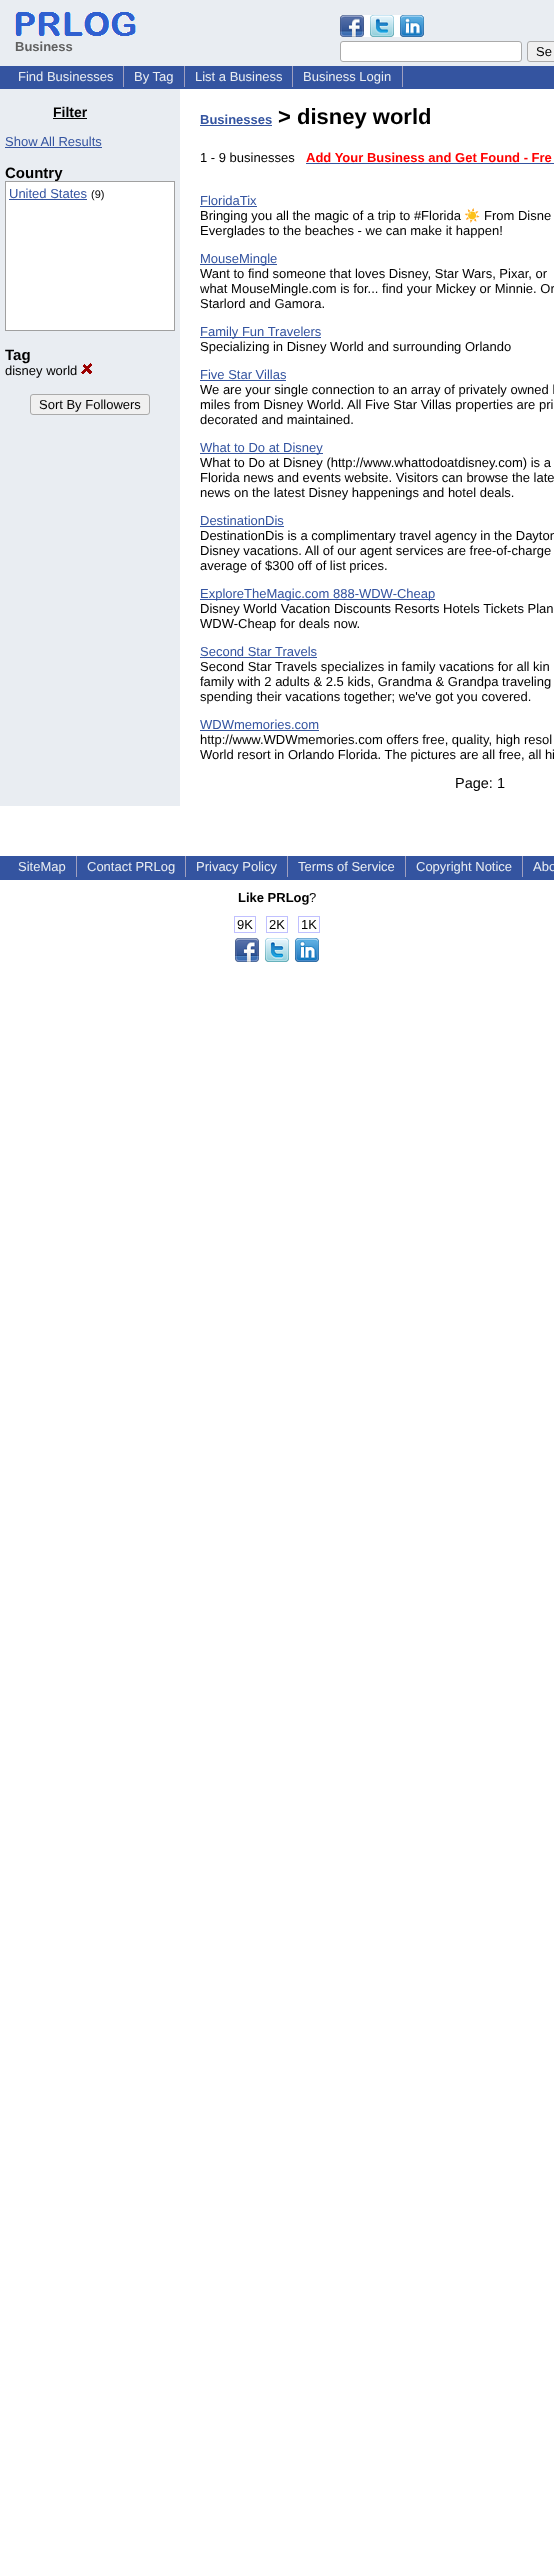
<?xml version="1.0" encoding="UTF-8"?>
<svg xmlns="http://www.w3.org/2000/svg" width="554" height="2567">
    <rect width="100%" height="100%" fill="#FFFFFF"/>
    <rect x="0" y="0" width="554" height="66" fill="#E9EDF2"/>
    <image x="15" y="12" width="121" height="24" href="img_01.png"/>
    <text x="15" y="51" font-family="Liberation Sans" font-size="13" font-weight="700" fill="#606060">Business</text>
    <image x="340" y="15" width="84" height="22" href="img_02.png"/>
    <rect x="340.5" y="41.5" width="181" height="20" rx="2.5" fill="#FFFFFF" stroke="#AAAAAA"/>
    <rect x="527.5" y="41.5" width="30" height="20" rx="2.5" fill="#F0F0F0" stroke="#AAAAAA"/>
    <text x="536" y="56" font-family="Liberation Sans" font-size="13" fill="#000000">Se</text>
    <rect x="0" y="66" width="554" height="23" fill="#3454A0"/>
    <rect x="123" y="66" width="1" height="21" fill="#A0A0C0"/>
    <text x="18" y="81" font-family="Liberation Sans" font-size="13" fill="#E9EDF2">Find Businesses</text>
    <rect x="184" y="66" width="1" height="21" fill="#A0A0C0"/>
    <text x="134" y="81" font-family="Liberation Sans" font-size="13" fill="#E9EDF2">By Tag</text>
    <rect x="292" y="66" width="1" height="21" fill="#A0A0C0"/>
    <text x="195" y="81" font-family="Liberation Sans" font-size="13" fill="#E9EDF2">List a Business</text>
    <rect x="402" y="66" width="1" height="21" fill="#A0A0C0"/>
    <text x="303" y="81" font-family="Liberation Sans" font-size="13" fill="#E9EDF2">Business Login</text>
    <rect x="0" y="89" width="180" height="717" fill="#E9EDF2"/>
    <text x="53" y="117" font-family="Liberation Sans" font-size="14" font-weight="700" fill="#000000">Filter</text>
    <rect x="53" y="118" width="34" height="1" fill="#000000"/>
    <text x="5" y="146" font-family="Liberation Sans" font-size="13" fill="#3454A0">Show All Results</text>
    <rect x="5" y="147" width="97" height="1" fill="#3454A0"/>
    <text x="5" y="178" font-family="Liberation Sans" font-size="15" font-weight="700" fill="#000000">Country</text>
    <rect x="5.5" y="181.5" width="169" height="149" fill="#FFFFFF" stroke="#A0A0A0"/>
    <text x="9" y="198" font-family="Liberation Sans" font-size="13" fill="#3454A0">United States</text>
    <rect x="9" y="199" width="78" height="1" fill="#3454A0"/>
    <text x="91" y="198" font-family="Liberation Sans" font-size="11" fill="#000000">(9)</text>
    <text x="5" y="360" font-family="Liberation Sans" font-size="15" font-weight="700" fill="#000000">Tag</text>
    <text x="5" y="375" font-family="Liberation Sans" font-size="13" fill="#000000">disney world</text>
    <image x="81" y="363" width="11" height="11" href="img_03.png"/>
    <rect x="30.5" y="394.5" width="119" height="20" rx="2.5" fill="#F0F0F0" stroke="#AAAAAA"/>
    <text x="39" y="409" font-family="Liberation Sans" font-size="13" fill="#000000">Sort By Followers</text>
    <text x="200" y="124" font-family="Liberation Sans" font-size="13" font-weight="700" fill="#3454A0">Businesses</text>
    <rect x="200" y="125" width="72" height="1" fill="#3454A0"/>
    <text x="278" y="124" font-family="Liberation Sans" font-size="22" font-weight="700" fill="#000000">&gt; disney world</text>
    <text x="200" y="162" font-family="Liberation Sans" font-size="13" fill="#000000">1 - 9 businesses</text>
    <text x="306" y="162" font-family="Liberation Sans" font-size="13" font-weight="700" fill="#FF0000">Add Your Business and Get Found - Fre</text>
    <rect x="306" y="163" width="248" height="1" fill="#3454A0"/>
    <text x="200" y="205" font-family="Liberation Sans" font-size="13" fill="#3454A0">FloridaTix</text>
    <rect x="200" y="206" width="57" height="1" fill="#3454A0"/>
    <text x="200" y="220" font-family="Liberation Sans" font-size="13" fill="#000000">Bringing you all the magic of a trip to #Florida</text>
    <text x="464" y="220" font-family="Noto Color Emoji" font-size="13" fill="#000000">☀️</text>
    <text x="484" y="220" font-family="Liberation Sans" font-size="13" fill="#000000">From Disne</text>
    <text x="200" y="235" font-family="Liberation Sans" font-size="13" fill="#000000">Everglades to the beaches - we can make it happen!</text>
    <rect x="200" y="264" width="77" height="1" fill="#3454A0"/>
    <text x="200" y="263" font-family="Liberation Sans" font-size="13" fill="#3454A0">MouseMingle</text>
    <text font-family="Liberation Sans" font-size="13" fill="#000000">
        <tspan x="200" y="278">Want to find someone that loves Disney, Star Wars, Pixar, or</tspan>
        <tspan x="200" y="293">what MouseMingle.com is for... find your Mickey or Minnie. Or</tspan>
        <tspan x="200" y="308">Starlord and Gamora.</tspan>
    </text>
    <rect x="200" y="337" width="121" height="1" fill="#3454A0"/>
    <text x="200" y="336" font-family="Liberation Sans" font-size="13" fill="#3454A0">Family Fun Travelers</text>
    <text x="200" y="351" font-family="Liberation Sans" font-size="13" fill="#000000">Specializing in Disney World and surrounding Orlando</text>
    <text x="200" y="379" font-family="Liberation Sans" font-size="13" fill="#3454A0">Five Star Villas</text>
    <rect x="200" y="380" width="86" height="1" fill="#3454A0"/>
    <text font-family="Liberation Sans" font-size="13" fill="#000000">
        <tspan x="200" y="394">We are your single connection to an array of privately owned l</tspan>
        <tspan x="200" y="409">miles from Disney World.</tspan>
    </text>
    <text x="347" y="409" font-family="Liberation Sans" font-size="13" fill="#000000">All Five Star Villas properties are pri</text>
    <text x="200" y="424" font-family="Liberation Sans" font-size="13" fill="#000000">decorated and maintained.</text>
    <rect x="200" y="453" width="123" height="1" fill="#3454A0"/>
    <text x="200" y="452" font-family="Liberation Sans" font-size="13" fill="#3454A0">What to Do at Disney</text>
    <text font-family="Liberation Sans" font-size="13" fill="#000000">
        <tspan x="200" y="467">What to Do at Disney (http://www.whattodoatdisney.com) is a</tspan>
        <tspan x="200" y="482">Florida news and events website. Visitors can browse the late</tspan>
        <tspan x="200" y="497">news on the latest Disney happenings and hotel deals.</tspan>
    </text>
    <text x="200" y="525" font-family="Liberation Sans" font-size="13" fill="#3454A0">DestinationDis</text>
    <rect x="200" y="526" width="84" height="1" fill="#3454A0"/>
    <text font-family="Liberation Sans" font-size="13" fill="#000000">
        <tspan x="200" y="540">DestinationDis is a complimentary travel agency in the Dayton</tspan>
        <tspan x="200" y="555">Disney vacations. All of our agent services are free-of-charge</tspan>
        <tspan x="200" y="570">average of $300 off of list prices.</tspan>
    </text>
    <rect x="200" y="599" width="235" height="1" fill="#3454A0"/>
    <text x="200" y="598" font-family="Liberation Sans" font-size="13" fill="#3454A0">ExploreTheMagic.com 888-WDW-Cheap</text>
    <text font-family="Liberation Sans" font-size="13" fill="#000000">
        <tspan x="200" y="613">Disney World Vacation Discounts Resorts Hotels Tickets Plan</tspan>
        <tspan x="200" y="628">WDW-Cheap for deals now.</tspan>
    </text>
    <text x="200" y="656" font-family="Liberation Sans" font-size="13" fill="#3454A0">Second Star Travels</text>
    <rect x="200" y="657" width="117" height="1" fill="#3454A0"/>
    <text font-family="Liberation Sans" font-size="13" fill="#000000">
        <tspan x="200" y="671">Second Star Travels specializes in family vacations for all kin</tspan>
        <tspan x="200" y="686">family with 2 adults &amp; 2.5 kids, Grandma &amp; Grandpa traveling</tspan>
        <tspan x="200" y="701">spending their vacations together; we've got you covered.</tspan>
    </text>
    <text x="200" y="729" font-family="Liberation Sans" font-size="13" fill="#3454A0">WDWmemories.com</text>
    <rect x="200" y="730" width="119" height="1" fill="#3454A0"/>
    <text font-family="Liberation Sans" font-size="13" fill="#000000">
        <tspan x="200" y="744">http://www.WDWmemories.com offers free, quality, high resol</tspan>
        <tspan x="200" y="759">World resort in Orlando Florida. The pictures are all free, all hi</tspan>
    </text>
    <text x="455" y="788" font-family="Liberation Sans" font-size="14.5" fill="#000000">Page: 1</text>
    <rect x="0" y="856" width="554" height="24" fill="#3454A0"/>
    <rect x="76" y="856" width="1" height="21" fill="#A0A0C0"/>
    <text x="18" y="871" font-family="Liberation Sans" font-size="13" fill="#E9EDF2">SiteMap</text>
    <rect x="185" y="856" width="1" height="21" fill="#A0A0C0"/>
    <text x="87" y="871" font-family="Liberation Sans" font-size="13" fill="#E9EDF2">Contact PRLog</text>
    <rect x="287" y="856" width="1" height="21" fill="#A0A0C0"/>
    <text x="196" y="871" font-family="Liberation Sans" font-size="13" fill="#E9EDF2">Privacy Policy</text>
    <rect x="405" y="856" width="1" height="21" fill="#A0A0C0"/>
    <text x="298" y="871" font-family="Liberation Sans" font-size="13" fill="#E9EDF2">Terms of Service</text>
    <rect x="522" y="856" width="1" height="21" fill="#A0A0C0"/>
    <text x="416" y="871" font-family="Liberation Sans" font-size="13" fill="#E9EDF2">Copyright Notice</text>
    <text x="533" y="871" font-family="Liberation Sans" font-size="13" fill="#E9EDF2">Abo</text>
    <text x="238" y="902" font-family="Liberation Sans" font-size="13" font-weight="700" fill="#000000">Like PRLog</text>
    <text x="309" y="902" font-family="Liberation Sans" font-size="13" fill="#000000">?</text>
    <rect x="234.5" y="916.5" width="21" height="16" fill="none" stroke="#C0C0FF"/>
    <text x="237" y="929" font-family="Liberation Sans" font-size="13" fill="#000000">9K</text>
    <rect x="266.5" y="916.5" width="21" height="16" fill="none" stroke="#C0C0FF"/>
    <text x="269" y="929" font-family="Liberation Sans" font-size="13" fill="#000000">2K</text>
    <rect x="298.5" y="916.5" width="21" height="16" fill="none" stroke="#C0C0FF"/>
    <text x="301" y="929" font-family="Liberation Sans" font-size="13" fill="#000000">1K</text>
    <image x="235" y="938" width="84" height="24" href="img_04.png"/>
</svg>
